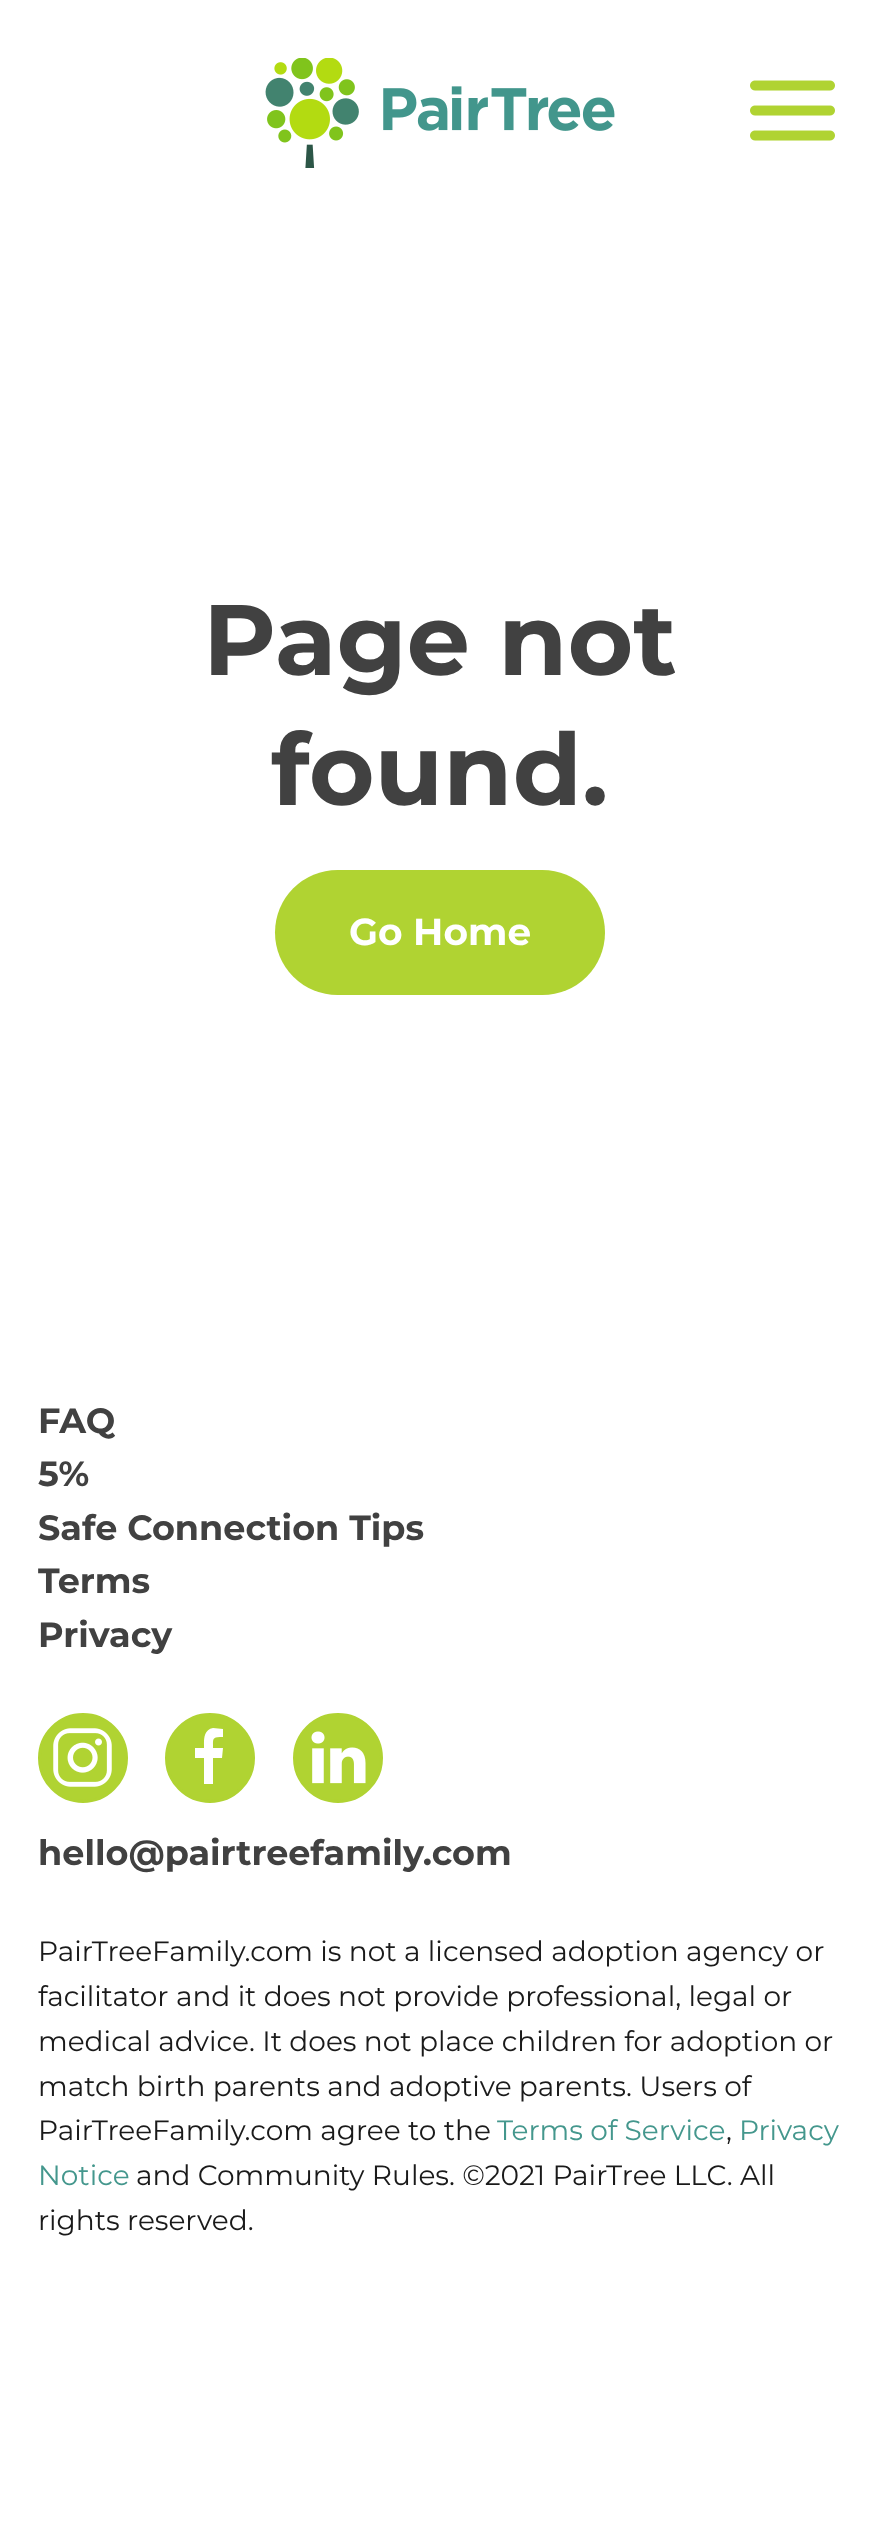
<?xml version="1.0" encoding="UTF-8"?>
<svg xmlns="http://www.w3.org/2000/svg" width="878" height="2545">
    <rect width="100%" height="100%" fill="#FFFFFF"/>
    <image x="265" y="58" width="350" height="110" href="img_01.png"/>
    <image x="750" y="80" width="85" height="61" href="img_02.png"/>
    <text x="203" y="675" font-family="Montserrat" font-size="100" font-weight="700" fill="#414141">Page not</text>
    <text x="271" y="805" font-family="Montserrat" font-size="100" font-weight="700" fill="#414141">found.</text>
    <rect x="275" y="870" width="330" height="125" rx="62.5" fill="#B0D332"/>
    <text x="349" y="945" font-family="Montserrat" font-size="37.5" font-weight="700" fill="#FFFFFF">Go Home</text>
    <text font-family="Montserrat" font-size="35" font-weight="700" fill="#414141">
        <tspan x="38" y="1433">FAQ</tspan>
        <tspan x="38" y="1486">5%</tspan>
        <tspan x="38" y="1540">Safe Connection Tips</tspan>
        <tspan x="38" y="1593">Terms</tspan>
        <tspan x="38" y="1647">Privacy</tspan>
    </text>
    <circle cx="83" cy="1758" r="43.5" fill="#B0D332" stroke="#B0D332" stroke-width="3"/>
    <image x="53" y="1728" width="59" height="59" href="img_03.png"/>
    <circle cx="210" cy="1758" r="43.5" fill="#B0D332" stroke="#B0D332" stroke-width="3"/>
    <path d="M 213 1758 H 222 L 223 1748 H 213 C 213 1738 212 1737 223 1737 V 1729 L 213 1728 C 203 1730 204 1740 204 1748 H 195 V 1758 H 204 V 1784 H 213 Z" fill="#FFFFFF"/>
    <circle cx="338" cy="1758" r="43.5" fill="#B0D332" stroke="#B0D332" stroke-width="3"/>
    <image x="311" y="1731" width="55" height="53" href="img_04.png"/>
    <text x="38" y="1865" font-family="Montserrat" font-size="35" font-weight="700" fill="#414141">hello@pairtreefamily.com</text>
    <text font-family="Montserrat" font-size="28" fill="#1A1A1A">
        <tspan x="38" y="1961">PairTreeFamily.com is not a licensed adoption agency or</tspan>
        <tspan x="38" y="2006">facilitator and it does not provide professional, legal or</tspan>
        <tspan x="38" y="2051">medical advice. It does not place children for adoption or</tspan>
        <tspan x="38" y="2096">match birth parents and adoptive parents. Users of</tspan>
        <tspan x="38" y="2140">PairTreeFamily.com agree to the</tspan>
    </text>
    <text x="497" y="2140" font-family="Montserrat" font-size="28" fill="#44978D">Terms of Service</text>
    <text x="726" y="2140" font-family="Montserrat" font-size="28" fill="#1A1A1A">,</text>
    <text x="739" y="2140" font-family="Montserrat" font-size="28" fill="#44978D">Privacy</text>
    <text x="38" y="2185" font-family="Montserrat" font-size="28" fill="#44978D">Notice</text>
    <text x="136" y="2185" font-family="Montserrat" font-size="28" fill="#1A1A1A">and Community Rules. ©2021 PairTree LLC. All</text>
    <text x="38" y="2230" font-family="Montserrat" font-size="28" fill="#1A1A1A">rights reserved.</text>
</svg>
